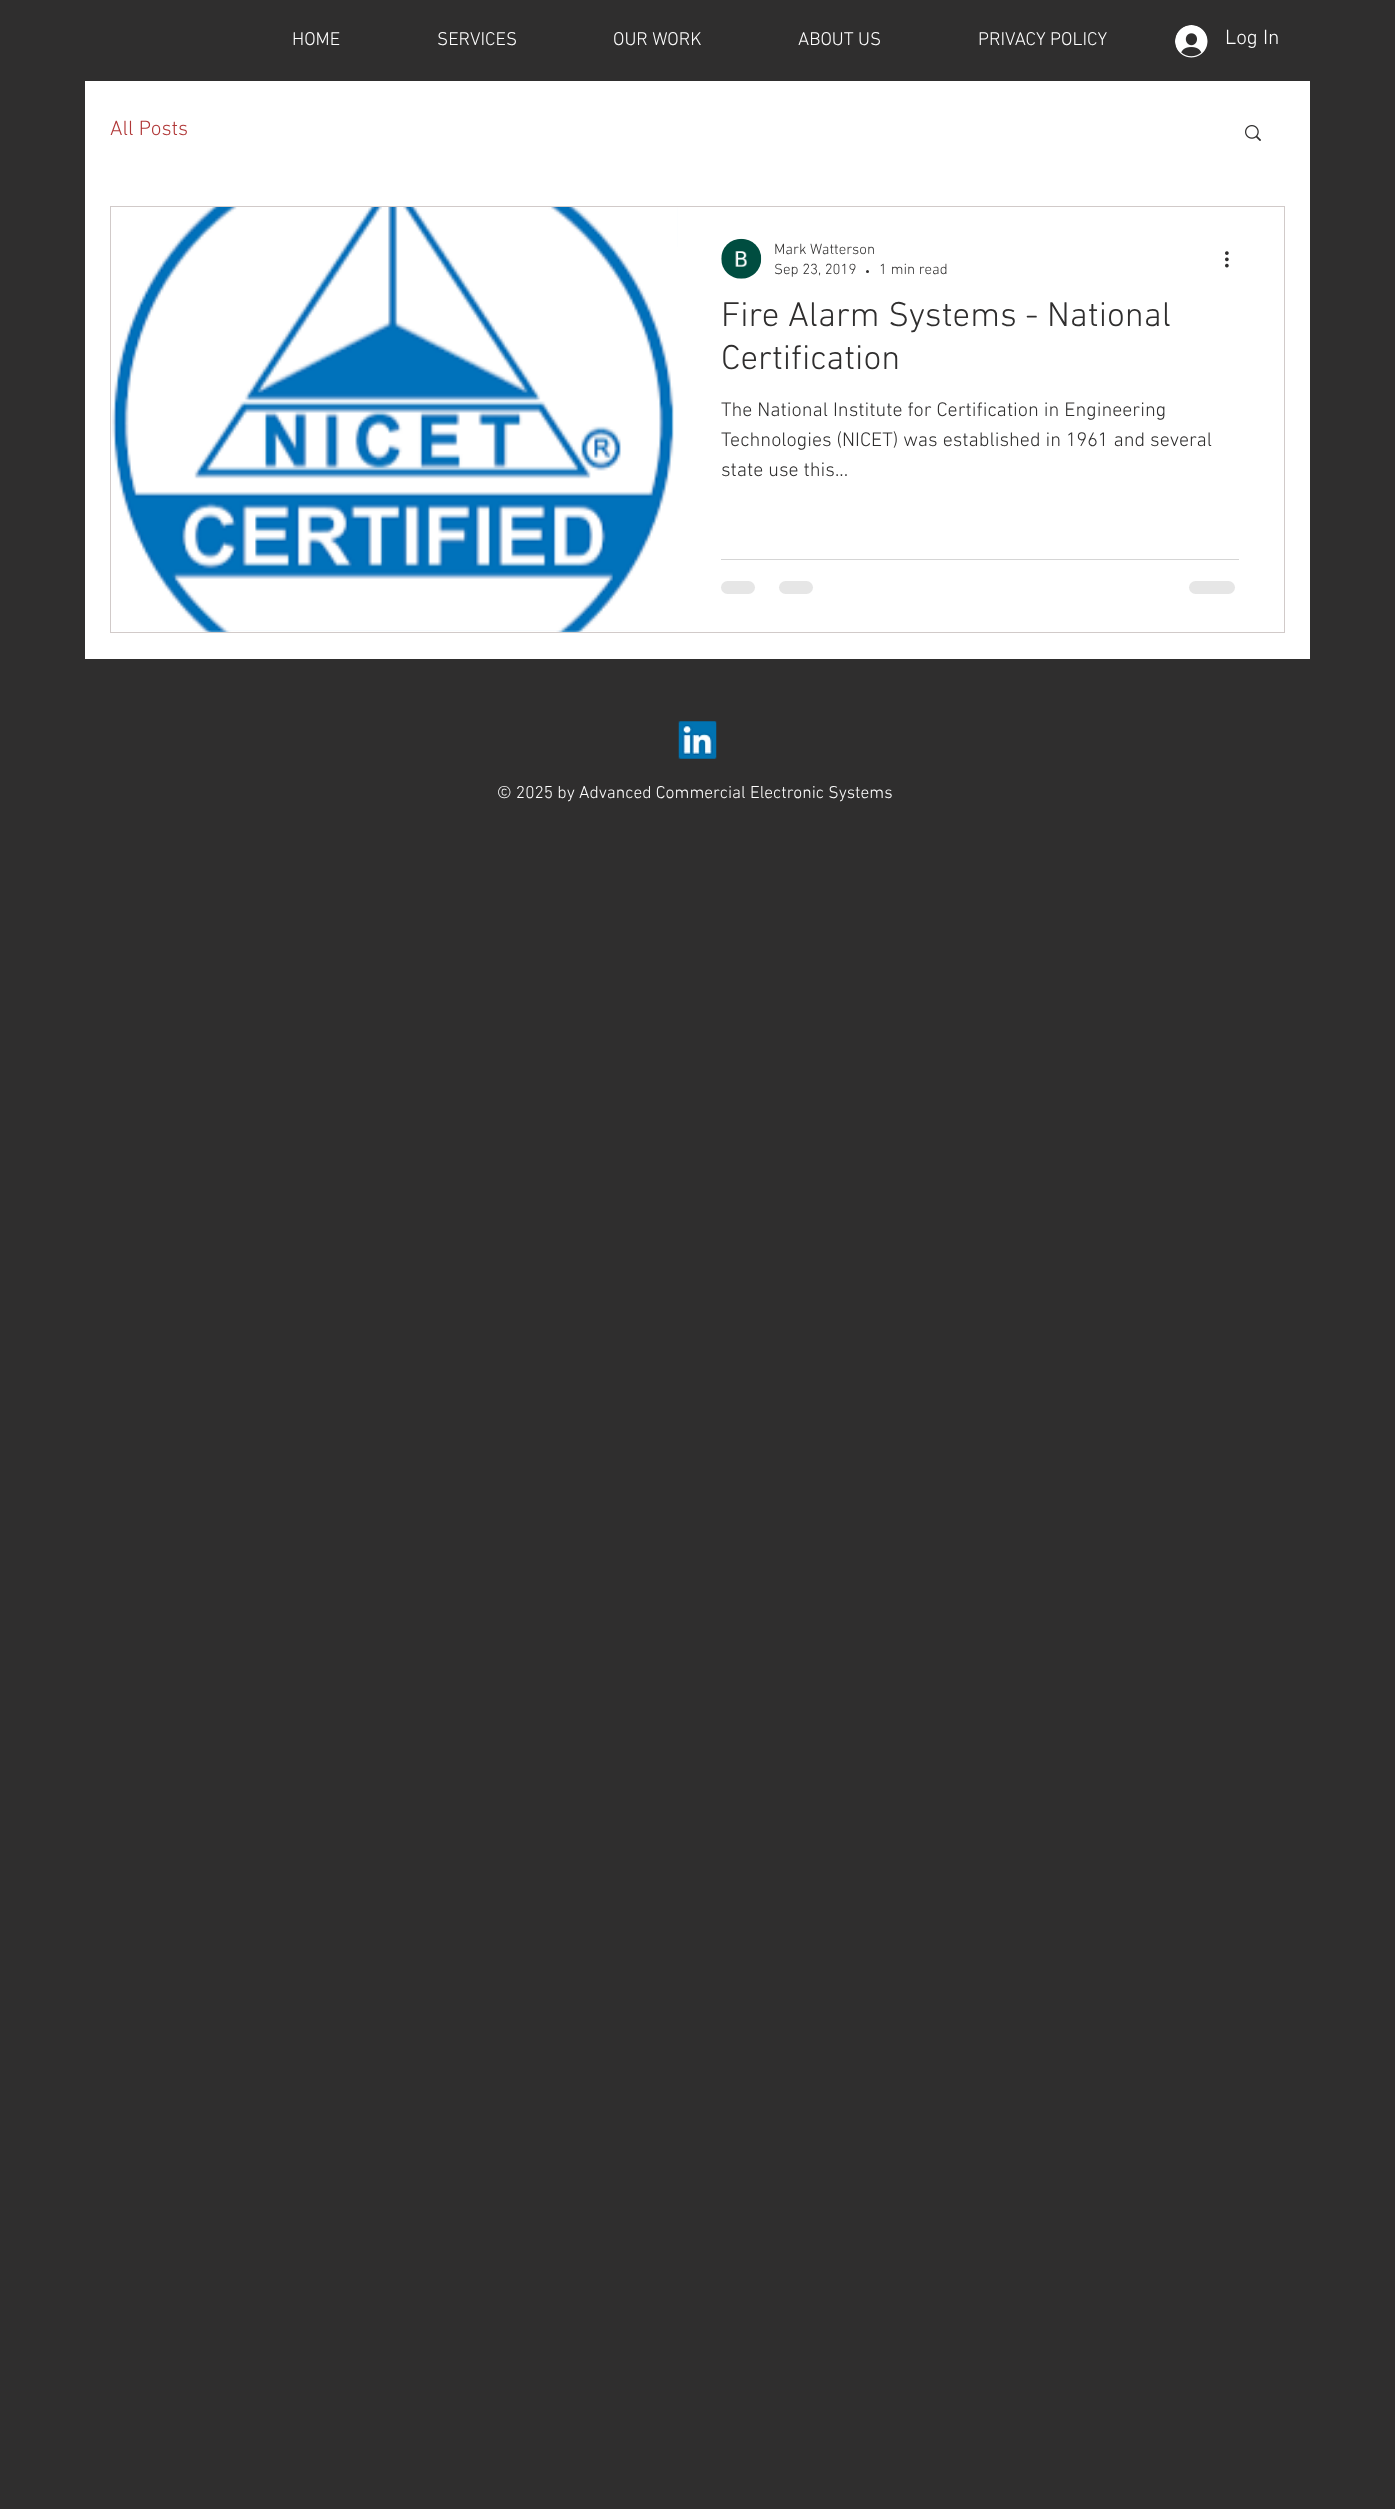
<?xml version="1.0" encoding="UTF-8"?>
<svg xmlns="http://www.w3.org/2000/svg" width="1395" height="2509">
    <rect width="100%" height="100%" fill="#2F2E2E"/>
    <text x="292" y="45" font-family="'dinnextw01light'" font-size="18.75" font-weight="300" fill="#FFFFFF">HOME</text>
    <text x="437" y="45" font-family="'dinnextw01light'" font-size="18.75" font-weight="300" fill="#FFFFFF">SERVICES</text>
    <text x="613" y="45" font-family="'dinnextw01light'" font-size="18.75" font-weight="300" fill="#FFFFFF">OUR WORK</text>
    <text x="798" y="45" font-family="'dinnextw01light'" font-size="18.75" font-weight="300" fill="#FFFFFF">ABOUT US</text>
    <text x="978" y="45" font-family="'dinnextw01light'" font-size="18.75" font-weight="300" fill="#FFFFFF">PRIVACY POLICY</text>
    <image x="1175" y="25" width="33" height="33" href="img_01.png"/>
    <text x="1225" y="44" font-family="'dinnextw01light'" font-size="21" font-weight="300" fill="#FFFFFF">Log In</text>
    <rect x="85" y="81" width="1225" height="578" fill="#FFFFFF"/>
    <text x="110" y="135" font-family="'dinnextw01light'" font-size="21" font-weight="300" fill="#B03737">All Posts</text>
    <image x="1245" y="125" width="16" height="16" href="img_02.png"/>
    <rect x="110.5" y="206.5" width="1174" height="426" fill="none" stroke="#D1CAC9"/>
    <image x="111" y="207" width="567" height="424" href="img_03.png"/>
    <image x="111" y="207" width="567" height="425" href="img_04.png"/>
    <rect x="677" y="247" width="1" height="384" fill="#FFFFFF"/>
    <image x="721" y="238" width="41" height="41" href="img_05.png"/>
    <text font-family="'dinnextw01light'" font-size="15" font-weight="300" fill="#2F2E2E">
        <tspan x="774" y="254">Mark Watterson</tspan>
        <tspan x="774" y="274">Sep 23, 2019</tspan>
    </text>
    <circle cx="867.5" cy="271.5" r="1.5" fill="#2F2E2E"/>
    <text x="879" y="274" font-family="'dinnextw01light'" font-size="15" font-weight="300" fill="#2F2E2E">1 min read</text>
    <image x="1225" y="251" width="4" height="17" href="img_06.png"/>
    <text font-family="'dinnextw01light'" font-size="35" font-weight="300" fill="#2F2E2E">
        <tspan x="721" y="326">Fire Alarm Systems - National</tspan>
        <tspan x="721" y="369">Certification</tspan>
    </text>
    <text font-family="'dinnextw01light'" font-size="20" font-weight="300" fill="#2F2E2E">
        <tspan x="721" y="416">The National Institute for Certification in Engineering</tspan>
        <tspan x="721" y="446">Technologies (NICET) was established in 1961 and several</tspan>
        <tspan x="721" y="476">state use this...</tspan>
    </text>
    <rect x="721" y="559" width="518" height="1" fill="#D5D5D5"/>
    <rect x="721" y="581" width="34" height="13" rx="6.5" fill="#E6E6E6"/>
    <rect x="779" y="581" width="34" height="13" rx="6.5" fill="#E6E6E6"/>
    <rect x="1189" y="581" width="46" height="13" rx="6.5" fill="#E6E6E6"/>
    <image x="678" y="721" width="39" height="38" href="img_07.png"/>
    <text x="497" y="798" font-family="'dinnextw01light'" font-size="17.5" font-weight="300" fill="#FFFFFF">© 2025 by Advanced Commercial Electronic Systems</text>
</svg>
